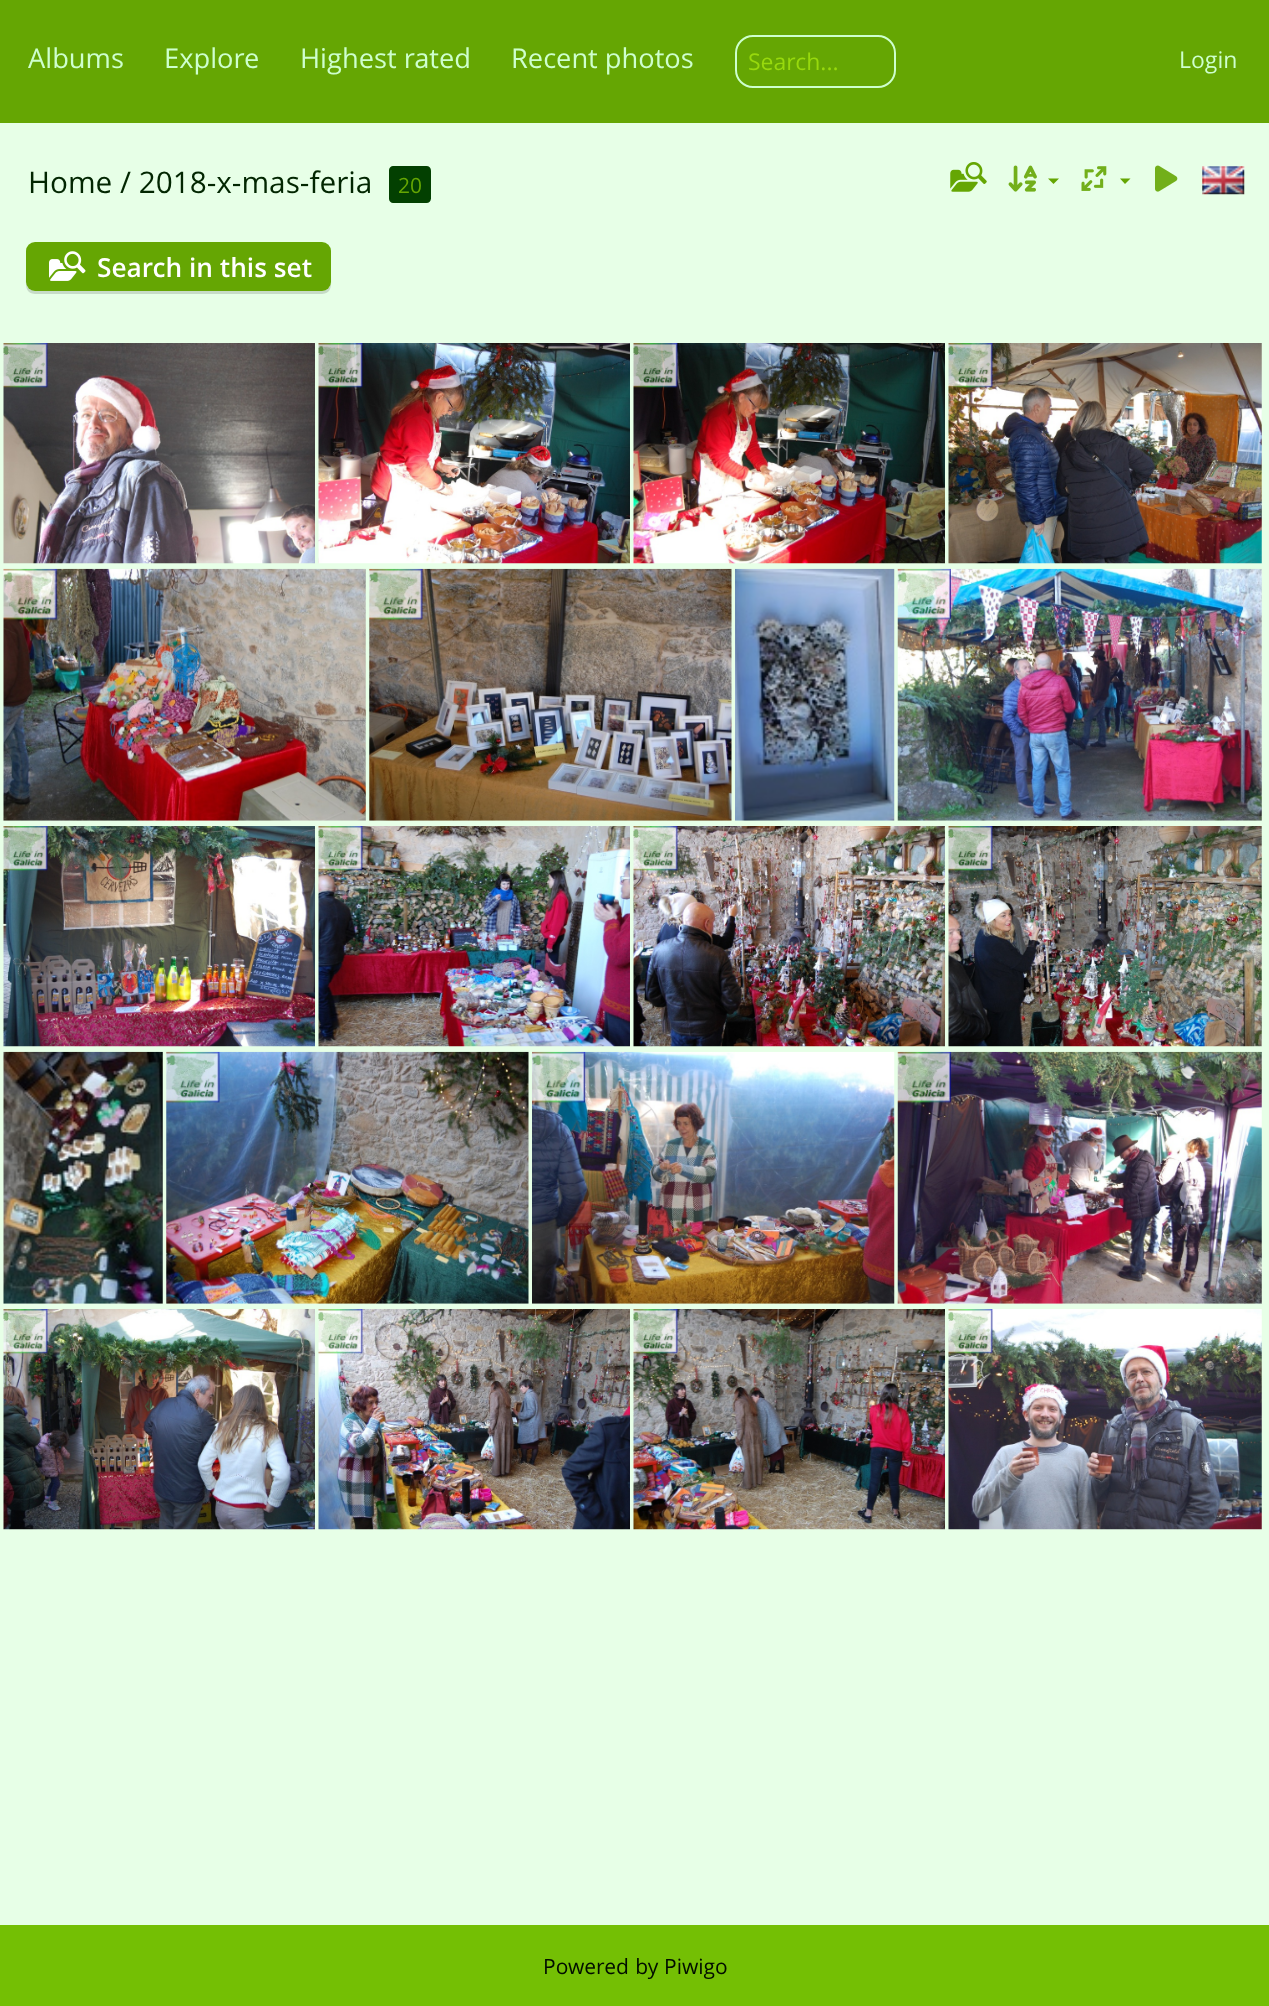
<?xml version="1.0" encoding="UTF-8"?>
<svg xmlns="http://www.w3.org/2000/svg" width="1269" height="2006">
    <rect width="100%" height="100%" fill="#E7FFE7"/>
    <rect x="0" y="0" width="1269" height="123" fill="#65A603"/>
    <text x="28" y="68" font-family="Open Sans" font-size="27.25" fill="#CEFFCE">Albums</text>
    <text x="164" y="68" font-family="Open Sans" font-size="27.25" fill="#CEFFCE">Explore</text>
    <text x="300" y="68" font-family="Open Sans" font-size="27.25" fill="#CEFFCE">Highest rated</text>
    <text x="511" y="68" font-family="Open Sans" font-size="27.25" fill="#CEFFCE">Recent photos</text>
    <rect x="736" y="36" width="159" height="51" rx="17" fill="none" stroke="#CEFFCE" stroke-width="2"/>
    <text x="748" y="70" font-family="Open Sans" font-size="23" fill="#98D90D">Search...</text>
    <text x="1179" y="68" font-family="Open Sans" font-size="23" fill="#CEFFCE">Login</text>
    <text x="28" y="193" font-family="Open Sans" font-size="29.75" fill="#022601">Home / 2018-x-mas-feria</text>
    <rect x="397" y="166" width="25" height="37" fill="#034001"/>
    <text x="398" y="193" font-family="Open Sans" font-size="21" fill="#65A603">20</text>
    <path d="M 393 166 H 397 V 203 H 393 C 391 203 389 201 389 199 V 170 C 389 168 391 166 393 166 Z" fill="#034001"/>
    <path d="M 422 166 H 426.5 C 429 166 431 168 431 170.5 V 198.5 C 431 201 429 203 426.5 203 H 422 Z" fill="#034001"/>
    <image x="950" y="162" width="37" height="30" href="img_01.png"/>
    <image x="1008" y="165" width="29" height="27" href="img_02.png"/>
    <path d="M 1048 178.5 H 1059 L 1053.5 184 Z" fill="#65A603"/>
    <image x="1081" y="166" width="26" height="25" href="img_03.png"/>
    <path d="M 1120 178.5 H 1130.5 L 1125 184 Z" fill="#65A603"/>
    <image x="1155" y="165" width="23" height="27" href="img_04.png"/>
    <image x="1202" y="166" width="43" height="29" href="img_05.png"/>
    <path d="M 26 252 V 275 C 26 282 24 294 35 294 H 322 C 333 294 331 282 331 275 V 252 V 282 C 331 287 327 290 322 290 H 35 C 30 290 26 287 26 282 Z" fill="#C7DBC7"/>
    <rect x="26" y="242" width="305" height="49" rx="9" fill="#65A603"/>
    <image x="49" y="251" width="37" height="30" href="img_06.png"/>
    <text x="97" y="277" font-family="Open Sans" font-size="26.25" font-weight="600" fill="#FFFFFF">Search in this set</text>
    <image x="3" y="343" width="312" height="221" href="img_07.png"/>
    <image x="318" y="343" width="312" height="221" href="img_08.png"/>
    <image x="633" y="343" width="312" height="221" href="img_09.png"/>
    <image x="948" y="343" width="314" height="221" href="img_10.png"/>
    <image x="3" y="568" width="363" height="253" href="img_11.png"/>
    <image x="369" y="568" width="363" height="253" href="img_12.png"/>
    <image x="735" y="568" width="160" height="253" href="img_13.png"/>
    <image x="897" y="568" width="365" height="253" href="img_14.png"/>
    <image x="3" y="826" width="312" height="221" href="img_15.png"/>
    <image x="318" y="826" width="312" height="221" href="img_16.png"/>
    <image x="633" y="826" width="312" height="221" href="img_17.png"/>
    <image x="948" y="826" width="314" height="221" href="img_18.png"/>
    <image x="3" y="1051" width="160" height="253" href="img_19.png"/>
    <image x="166" y="1051" width="363" height="253" href="img_20.png"/>
    <image x="532" y="1051" width="363" height="253" href="img_21.png"/>
    <image x="897" y="1051" width="365" height="253" href="img_22.png"/>
    <image x="3" y="1309" width="312" height="221" href="img_23.png"/>
    <image x="318" y="1309" width="312" height="221" href="img_24.png"/>
    <image x="633" y="1309" width="312" height="221" href="img_25.png"/>
    <image x="948" y="1309" width="314" height="221" href="img_26.png"/>
    <rect x="0" y="1925" width="1269" height="81" fill="#74BF04"/>
    <text x="543" y="1974" word-spacing="1" font-family="Open Sans" font-size="21" fill="#010D00">Powered by</text>
    <text x="664" y="1974" font-family="Open Sans" font-size="21" fill="#010D00">Piwigo</text>
</svg>
